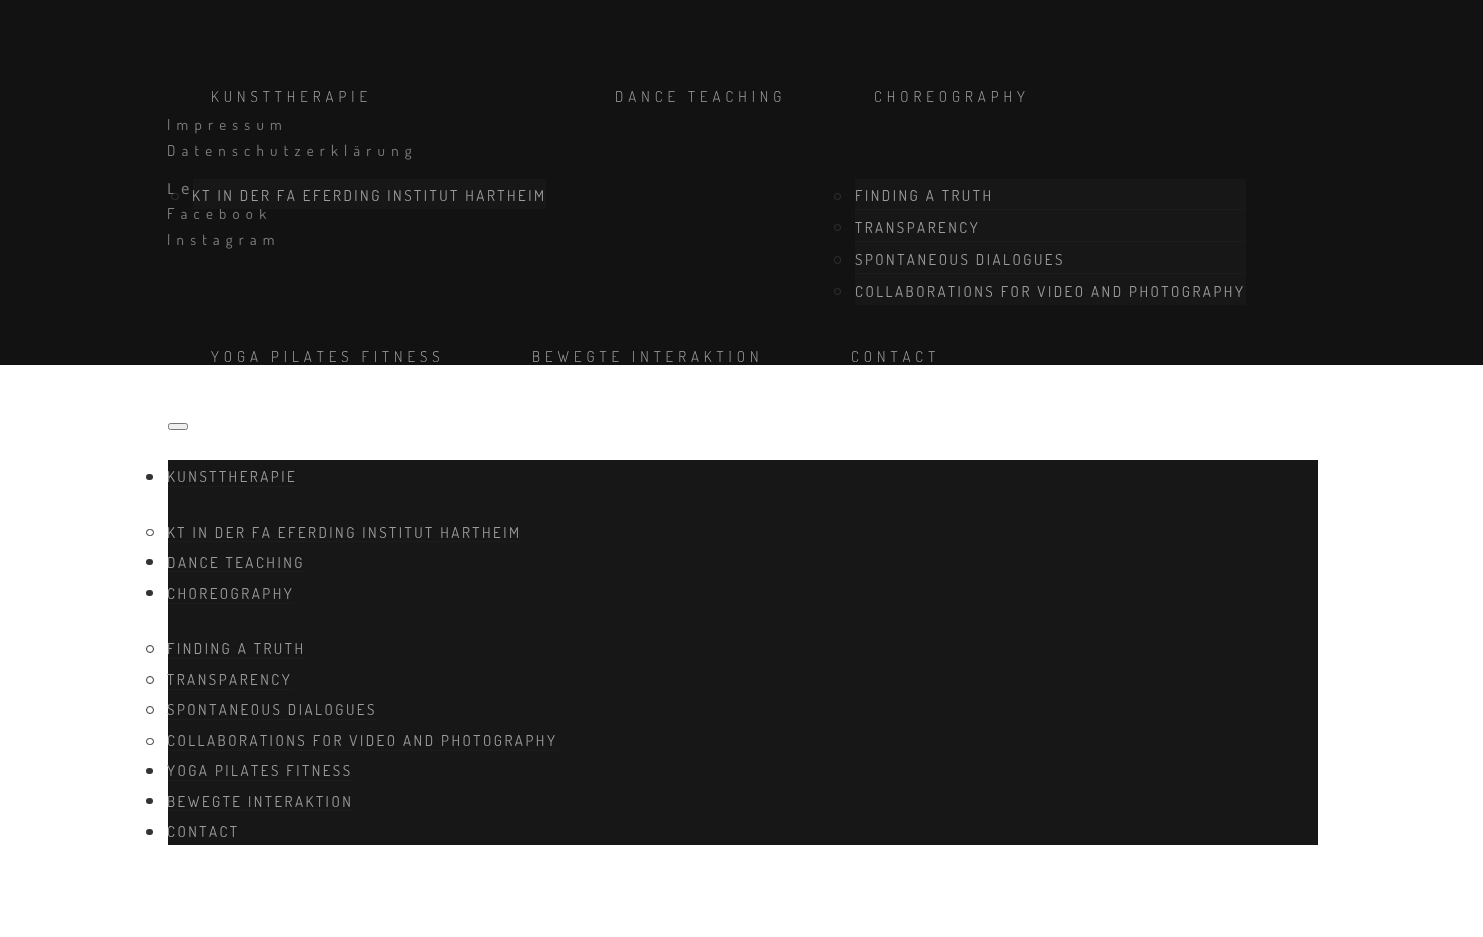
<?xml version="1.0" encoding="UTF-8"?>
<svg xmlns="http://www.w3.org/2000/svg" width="1483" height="937">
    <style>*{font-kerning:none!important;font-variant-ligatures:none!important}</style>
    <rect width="100%" height="100%" fill="#FFFFFF"/>
    <rect x="0" y="0" width="1483" height="365" fill="#121212"/>
    <text x="211" y="102" font-family="Dosis" font-size="15" font-weight="300" letter-spacing="5" fill="#A1A1A1">KUNSTTHERAPIE</text>
    <text x="167" y="219" font-family="Dosis" font-size="15" letter-spacing="6.25" fill="#808080">Facebook</text>
    <rect x="193" y="179" width="353" height="30" fill="#171717"/>
    <text x="167" y="194" font-family="Open Sans" font-size="15" letter-spacing="6.25" fill="#808080">Le</text>
    <rect x="171.5" y="193.5" width="7" height="6" rx="3" fill="none" stroke="#333333"/>
    <text x="192" y="201" font-family="Dosis" font-size="15" letter-spacing="2.5" fill="#9E9B9B">KT IN DER FA EFERDING INSTITUT HARTHEIM</text>
    <text x="615" y="102" font-family="Dosis" font-size="15" font-weight="300" letter-spacing="5" fill="#A1A1A1">DANCE TEACHING</text>
    <text x="874" y="102" font-family="Dosis" font-size="15" font-weight="300" letter-spacing="5" fill="#A1A1A1">CHOREOGRAPHY</text>
    <rect x="855" y="179" width="391" height="126" fill="#171717"/>
    <circle cx="837.5" cy="196.5" r="3" fill="none" stroke="#333333"/>
    <text x="855" y="201" font-family="Dosis" font-size="15" letter-spacing="2.5" fill="#9E9B9B">FINDING A TRUTH</text>
    <rect x="855" y="209" width="391" height="1" fill="#1C1C1C"/>
    <circle cx="837.5" cy="227.5" r="3" fill="none" stroke="#333333"/>
    <text x="855" y="233" font-family="Dosis" font-size="15" letter-spacing="2.5" fill="#9E9B9B">TRANSPARENCY</text>
    <rect x="855" y="241" width="391" height="1" fill="#1C1C1C"/>
    <rect x="834.5" y="256.5" width="6" height="7" rx="3" fill="none" stroke="#333333"/>
    <text x="855" y="265" font-family="Dosis" font-size="15" letter-spacing="2.5" fill="#9E9B9B">SPONTANEOUS DIALOGUES</text>
    <rect x="855" y="273" width="391" height="1" fill="#1C1C1C"/>
    <circle cx="837.5" cy="291.5" r="3" fill="none" stroke="#333333"/>
    <text x="855" y="297" font-family="Dosis" font-size="15" letter-spacing="2.5" fill="#9E9B9B">COLLABORATIONS FOR VIDEO AND PHOTOGRAPHY</text>
    <text x="211" y="362" font-family="Dosis" font-size="15" font-weight="300" letter-spacing="5" fill="#A1A1A1">YOGA PILATES FITNESS</text>
    <text x="532" y="362" font-family="Dosis" font-size="15" font-weight="300" letter-spacing="5" fill="#A1A1A1">BEWEGTE INTERAKTION</text>
    <text x="851" y="362" font-family="Dosis" font-size="15" font-weight="300" letter-spacing="5" fill="#A1A1A1">CONTACT</text>
    <rect x="168.5" y="423.5" width="19" height="6" rx="2" fill="#EFEFEF" stroke="#767676"/>
    <rect x="168" y="460" width="1150" height="385" fill="#171717"/>
    <rect x="146" y="474" width="7" height="6" rx="3" fill="#333333"/>
    <text x="167" y="482" font-family="Dosis" font-size="15" letter-spacing="2.5" fill="#9E9B9B">KUNSTTHERAPIE</text>
    <rect x="168" y="486" width="130" height="1" fill="#1C1C1C"/>
    <rect x="146.5" y="529.5" width="7" height="6" rx="3" fill="none" stroke="#333333"/>
    <text x="167" y="538" font-family="Dosis" font-size="15" letter-spacing="2.5" fill="#9E9B9B">KT IN DER FA EFERDING INSTITUT HARTHEIM</text>
    <rect x="168" y="541" width="353" height="1" fill="#1C1C1C"/>
    <rect x="146" y="559" width="7" height="6" rx="3" fill="#333333"/>
    <text x="167" y="568" font-family="Dosis" font-size="15" letter-spacing="2.5" fill="#9E9B9B">DANCE TEACHING</text>
    <rect x="168" y="571" width="137" height="1" fill="#1C1C1C"/>
    <rect x="146" y="590" width="7" height="6" rx="3" fill="#333333"/>
    <text x="167" y="599" font-family="Dosis" font-size="15" letter-spacing="2.5" fill="#9E9B9B">CHOREOGRAPHY</text>
    <rect x="168" y="603" width="126" height="1" fill="#1C1C1C"/>
    <circle cx="150" cy="649" r="3.5" fill="none" stroke="#333333"/>
    <text x="167" y="654" font-family="Dosis" font-size="15" letter-spacing="2.5" fill="#9E9B9B">FINDING A TRUTH</text>
    <rect x="168" y="658" width="137" height="1" fill="#1C1C1C"/>
    <circle cx="150" cy="680" r="3.5" fill="none" stroke="#333333"/>
    <text x="167" y="685" font-family="Dosis" font-size="15" letter-spacing="2.5" fill="#9E9B9B">TRANSPARENCY</text>
    <rect x="168" y="689" width="125" height="1" fill="#1C1C1C"/>
    <circle cx="150" cy="710" r="3.5" fill="none" stroke="#333333"/>
    <text x="167" y="715" font-family="Dosis" font-size="15" letter-spacing="2.5" fill="#9E9B9B">SPONTANEOUS DIALOGUES</text>
    <rect x="168" y="719" width="208" height="1" fill="#1C1C1C"/>
    <rect x="146.5" y="738.5" width="7" height="6" rx="3" fill="none" stroke="#333333"/>
    <text x="167" y="746" font-family="Dosis" font-size="15" letter-spacing="2.5" fill="#9E9B9B">COLLABORATIONS FOR VIDEO AND PHOTOGRAPHY</text>
    <rect x="168" y="750" width="390" height="1" fill="#1C1C1C"/>
    <rect x="146" y="768" width="7" height="6" rx="3" fill="#333333"/>
    <text x="167" y="776" font-family="Dosis" font-size="15" letter-spacing="2.5" fill="#9E9B9B">YOGA PILATES FITNESS</text>
    <rect x="168" y="780" width="185" height="1" fill="#1C1C1C"/>
    <rect x="146" y="798" width="7" height="6" rx="3" fill="#333333"/>
    <text x="167" y="807" font-family="Dosis" font-size="15" letter-spacing="2.5" fill="#9E9B9B">BEWEGTE INTERAKTION</text>
    <rect x="168" y="810" width="186" height="1" fill="#1C1C1C"/>
    <rect x="146" y="829" width="7" height="6" rx="3" fill="#333333"/>
    <text x="167" y="837" font-family="Dosis" font-size="15" letter-spacing="2.5" fill="#9E9B9B">CONTACT</text>
    <text font-family="Dosis" font-size="15" letter-spacing="6.25" fill="#808080">
        <tspan x="167" y="130">Impressum</tspan>
        <tspan x="167" y="156">Datenschutzerklärung</tspan>
    </text>
    <text x="167" y="245" font-family="Dosis" font-size="15" letter-spacing="6.25" fill="#808080">Instagram</text>
</svg>
